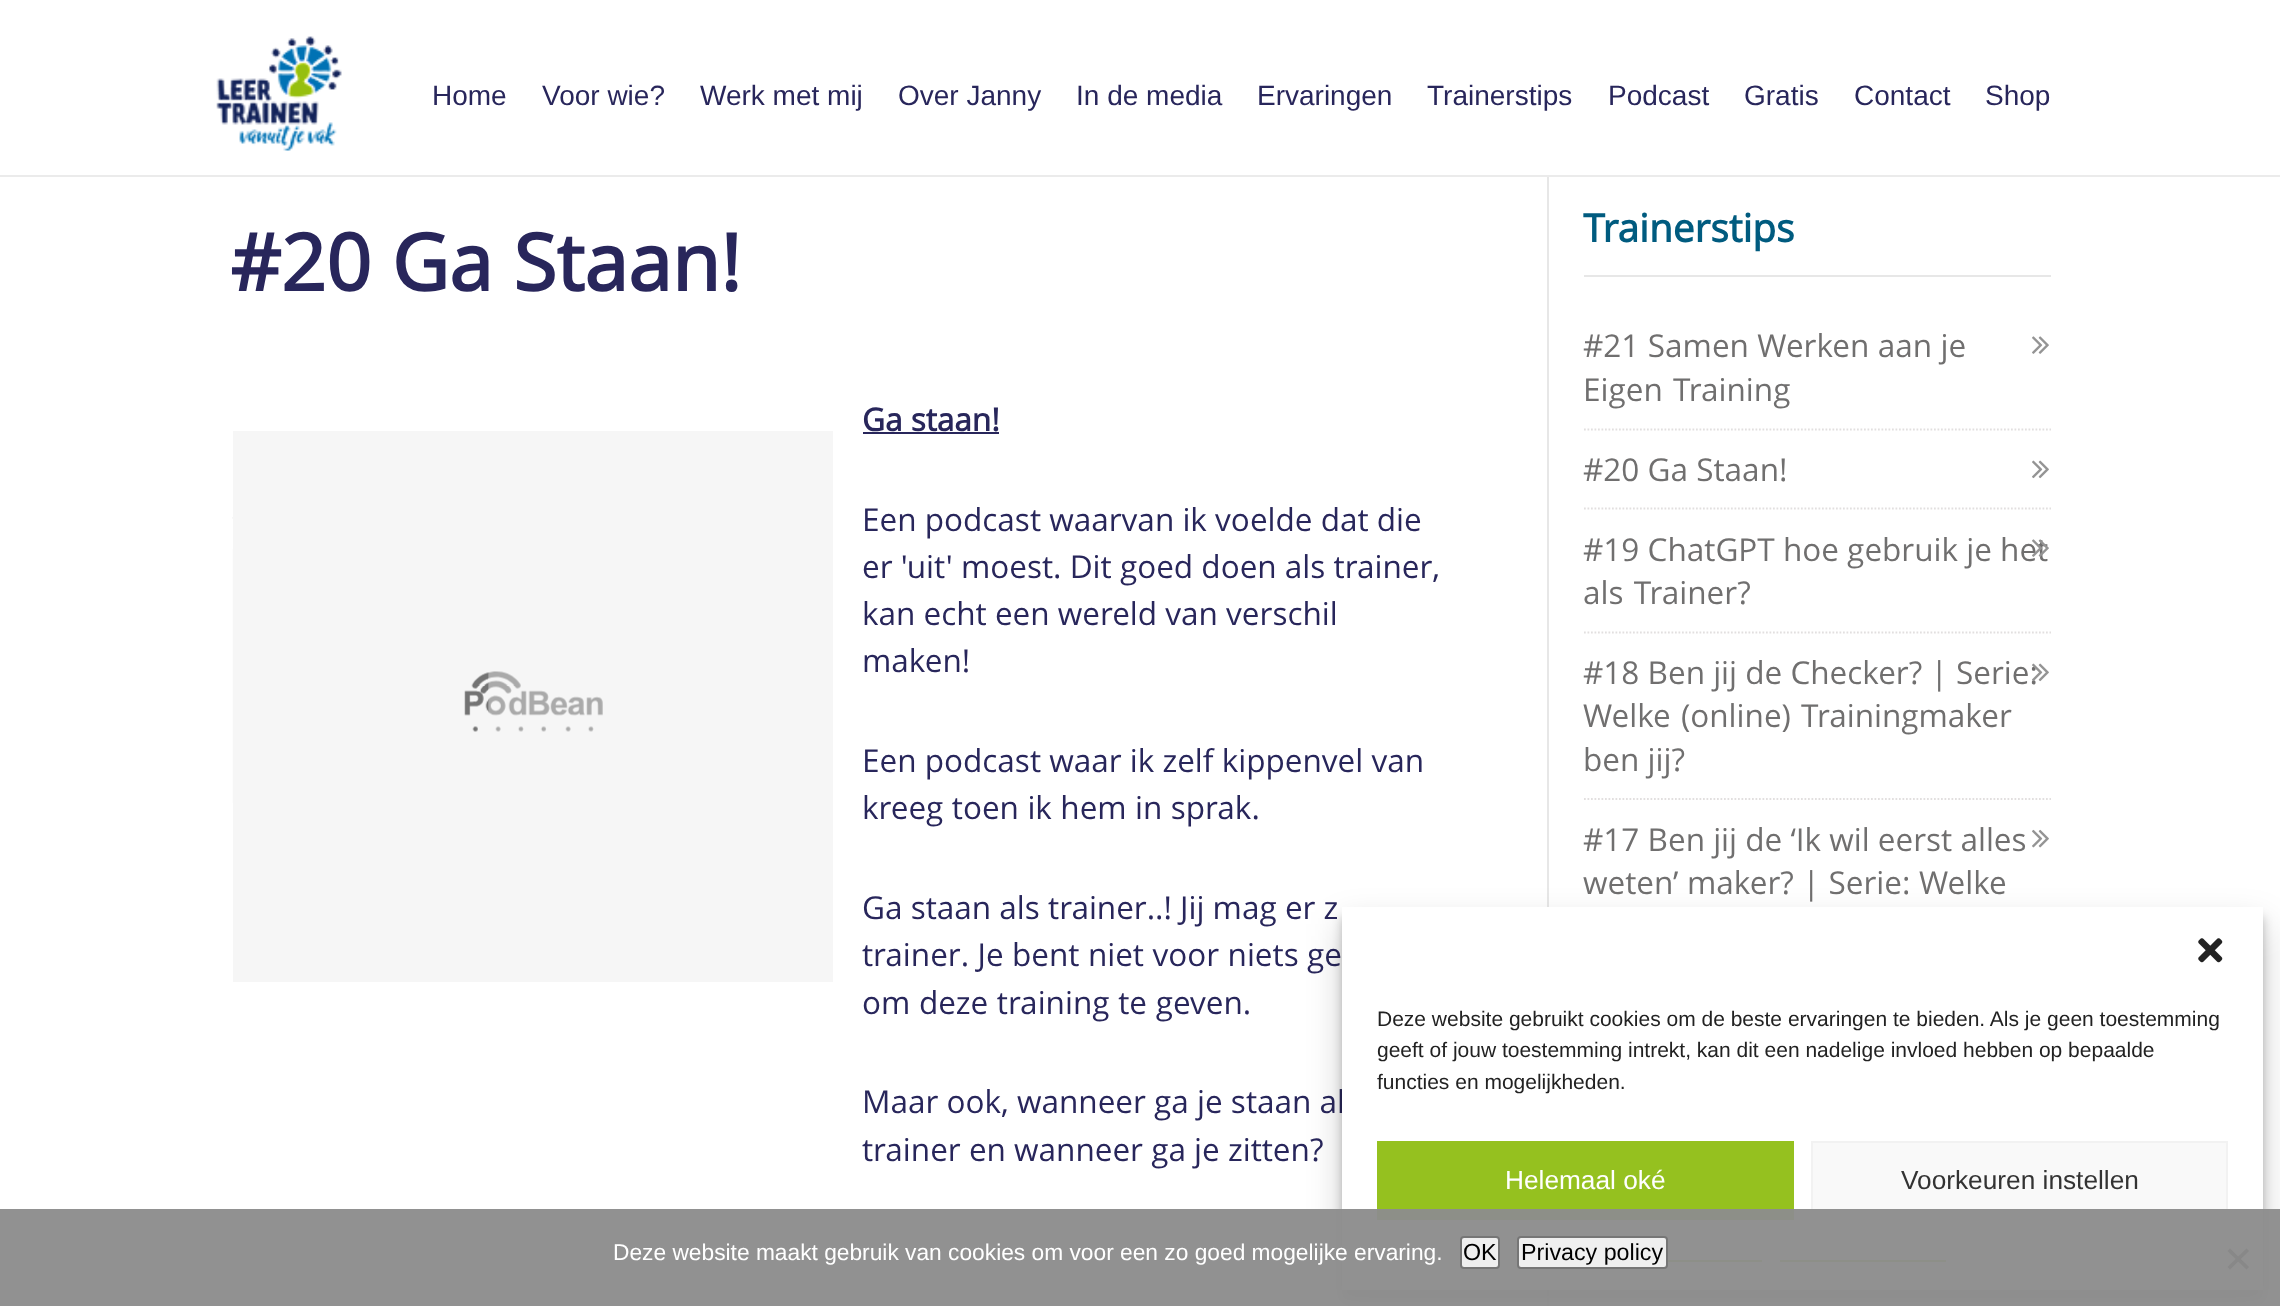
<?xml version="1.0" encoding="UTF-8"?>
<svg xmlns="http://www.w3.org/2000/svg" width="2280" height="1306">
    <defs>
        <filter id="blur1" x="-50%" y="-200%" width="200%" height="500%"><feGaussianBlur stdDeviation="5"/></filter>
        <filter id="blur2" x="-50%" y="-200%" width="200%" height="500%"><feGaussianBlur stdDeviation="17.5"/></filter>
    </defs>
    <rect width="100%" height="100%" fill="#FFFFFF"/>
    <rect x="0" y="175" width="2280" height="2" fill="#EBEBEB"/>
    <image x="216" y="36" width="126" height="115" href="img_01.png"/>
    <text x="432" y="105" font-family="Liberation Sans" font-size="28" fill="#28265B">Home</text>
    <text x="542" y="105" font-family="Liberation Sans" font-size="28" fill="#28265B">Voor wie?</text>
    <text x="700" y="105" font-family="Liberation Sans" font-size="28" fill="#28265B">Werk met mij</text>
    <text x="898" y="105" font-family="Liberation Sans" font-size="28" fill="#28265B">Over Janny</text>
    <text x="1076" y="105" font-family="Liberation Sans" font-size="28" fill="#28265B">In de media</text>
    <text x="1257" y="105" font-family="Liberation Sans" font-size="28" fill="#28265B">Ervaringen</text>
    <text x="1427" y="105" font-family="Liberation Sans" font-size="28" fill="#28265B">Trainerstips</text>
    <text x="1608" y="105" font-family="Liberation Sans" font-size="28" fill="#28265B">Podcast</text>
    <text x="1744" y="105" font-family="Liberation Sans" font-size="28" fill="#28265B">Gratis</text>
    <text x="1854" y="105" font-family="Liberation Sans" font-size="28" fill="#28265B">Contact</text>
    <text x="1985" y="105" font-family="Liberation Sans" font-size="28" fill="#28265B">Shop</text>
    <text x="230" y="291" font-family="Open Sans" font-size="78.75" font-weight="700" fill="#28265B">#20 Ga Staan!</text>
    <image x="232" y="431" width="601" height="551" href="img_02.png"/>
    <text x="862" y="431" font-family="Open Sans" font-size="31.5" font-weight="700" fill="#28265B">Ga staan!</text>
    <rect x="863" y="432" width="136" height="2" fill="#28265B"/>
    <text font-family="Open Sans" font-size="31.5" fill="#28265B">
        <tspan x="862" y="531">Een podcast waarvan ik voelde dat die</tspan>
        <tspan x="862" y="578">er 'uit' moest. Dit goed doen als trainer,</tspan>
        <tspan x="862" y="625">kan echt een wereld van verschil</tspan>
        <tspan x="862" y="672">maken!</tspan>
    </text>
    <text font-family="Open Sans" font-size="31.5" fill="#28265B">
        <tspan x="862" y="772">Een podcast waar ik zelf kippenvel van</tspan>
        <tspan x="862" y="819" word-spacing="0.25">kreeg toen ik hem in sprak.</tspan>
    </text>
    <text font-family="Open Sans" font-size="31.5" fill="#28265B">
        <tspan x="862" y="919">Ga staan als trainer..! Jij mag er z</tspan>
        <tspan x="862" y="966" word-spacing="0.25">trainer. Je bent niet voor niets ge</tspan>
        <tspan x="862" y="1014" word-spacing="0.5">om deze training te geven.</tspan>
    </text>
    <text font-family="Open Sans" font-size="31.5" fill="#28265B">
        <tspan x="862" y="1113">Maar ook, wanneer ga je staan al</tspan>
        <tspan x="862" y="1161">trainer en wanneer ga je zitten?</tspan>
    </text>
    <rect x="1547" y="177" width="2" height="1129" fill="#E7E7E7"/>
    <rect x="1584" y="275" width="467" height="2" fill="#E7E7E7"/>
    <text x="1583" y="242" font-family="Open Sans" font-size="38.75" font-weight="700" fill="#005B7F">Trainerstips</text>
    <path d="M 1584 429.5 H 2051" fill="none" stroke="#E2DFDF" stroke-width="1.8" stroke-dasharray="1.75 1.75"/>
    <text x="1583" y="357" word-spacing="0.25" font-family="Open Sans" font-size="31.5" fill="#706F6F">#21 Samen Werken aan je</text>
    <image x="2032" y="336" width="17" height="18" href="img_03.png"/>
    <text x="1583" y="401" word-spacing="2" font-family="Open Sans" font-size="31.5" fill="#706F6F">Eigen Training</text>
    <path d="M 1584 508.5 H 2051" fill="none" stroke="#E2DFDF" stroke-width="1.8" stroke-dasharray="1.75 1.75"/>
    <text x="1583" y="481" font-family="Open Sans" font-size="31.5" fill="#706F6F">#20 Ga Staan!</text>
    <image x="2032" y="460" width="17" height="19" href="img_04.png"/>
    <path d="M 1584 632.5 H 2051" fill="none" stroke="#E2DFDF" stroke-width="1.8" stroke-dasharray="1.75 1.75"/>
    <text x="1583" y="561" font-family="Open Sans" font-size="31.5" fill="#706F6F">#19 ChatGPT hoe gebruik je het</text>
    <image x="2032" y="539" width="17" height="18" href="img_05.png"/>
    <text x="1583" y="604" word-spacing="2" font-family="Open Sans" font-size="31.5" fill="#706F6F">als Trainer?</text>
    <path d="M 1584 799 H 2051" fill="none" stroke="#E2DFDF" stroke-width="1.8" stroke-dasharray="1.75 1.75"/>
    <text x="1583" y="684" font-family="Open Sans" font-size="31.5" fill="#706F6F">#18 Ben jij de Checker? | Serie:</text>
    <image x="2032" y="663" width="17" height="19" href="img_06.png"/>
    <text font-family="Open Sans" font-size="31.5" fill="#706F6F">
        <tspan x="1583" y="727" word-spacing="2">Welke (online) Trainingmaker</tspan>
        <tspan x="1583" y="771">ben jij?</tspan>
    </text>
    <text x="1583" y="851" font-family="Open Sans" font-size="31.5" fill="#706F6F">#17 Ben jij de ‘Ik wil eerst alles</text>
    <image x="2032" y="829" width="17" height="19" href="img_07.png"/>
    <text x="1583" y="894" word-spacing="0.5" font-family="Open Sans" font-size="31.5" fill="#706F6F">weten’ maker? | Serie: Welke</text>
    <rect x="1342" y="917" width="921" height="383" fill="#000000" fill-opacity="0.23" filter="url(#blur1)"/>
    <rect x="1342" y="924" width="921" height="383" fill="#000000" fill-opacity="0.19" filter="url(#blur2)"/>
    <rect x="1342" y="907" width="921" height="383" fill="#FFFFFF"/>
    <image x="2198" y="938" width="25" height="25" href="img_08.png"/>
    <text font-family="Liberation Sans" font-size="21" fill="#222222">
        <tspan x="1377" y="1026">Deze website gebruikt cookies om de beste ervaringen te bieden. Als je geen toestemming</tspan>
        <tspan x="1377" y="1057">geeft of jouw toestemming intrekt, kan dit een nadelige invloed hebben op bepaalde</tspan>
        <tspan x="1377" y="1089">functies en mogelijkheden.</tspan>
    </text>
    <rect x="1377" y="1141" width="417" height="79" fill="#95C11F"/>
    <text x="1505" y="1189" font-family="Liberation Sans" font-size="26.25" fill="#FFFFFF">Helemaal oké</text>
    <rect x="1812" y="1142" width="415" height="77" fill="#F9F9F9" stroke="#F2F2F2" stroke-width="2"/>
    <text x="1901" y="1189" font-family="Liberation Sans" font-size="26.25" fill="#333333">Voorkeuren instellen</text>
    <rect x="1668" y="1260" width="94" height="2" fill="#95C11F"/>
    <rect x="1780" y="1260" width="166" height="2" fill="#95C11F"/>
    <rect x="0" y="1209" width="2280" height="97" fill="#8C8C8C" fill-opacity="0.96"/>
    <text x="613" y="1260" font-family="Liberation Sans" font-size="22.75" fill="#FFFFFF">Deze website maakt gebruik van cookies om voor een zo goed mogelijke ervaring.</text>
    <rect x="1461" y="1237" width="38" height="31" rx="3" fill="#EFEFEF" stroke="#767676" stroke-width="2"/>
    <text x="1463" y="1260" font-family="Liberation Sans" font-size="23.25" fill="#000000">OK</text>
    <rect x="1518" y="1237" width="149" height="31" rx="3" fill="#EFEFEF" stroke="#767676" stroke-width="2"/>
    <text x="1521" y="1260" font-family="Liberation Sans" font-size="23.25" fill="#000000">Privacy policy</text>
    <path d="M 2246.5 1248.5 L 2249 1251 L 2230 1269.5 L 2227.5 1267 Z" fill="#888888"/>
    <path d="M 2227.5 1251 L 2230 1248.5 L 2249 1267 L 2246.5 1269.5 Z" fill="#888888"/>
</svg>
